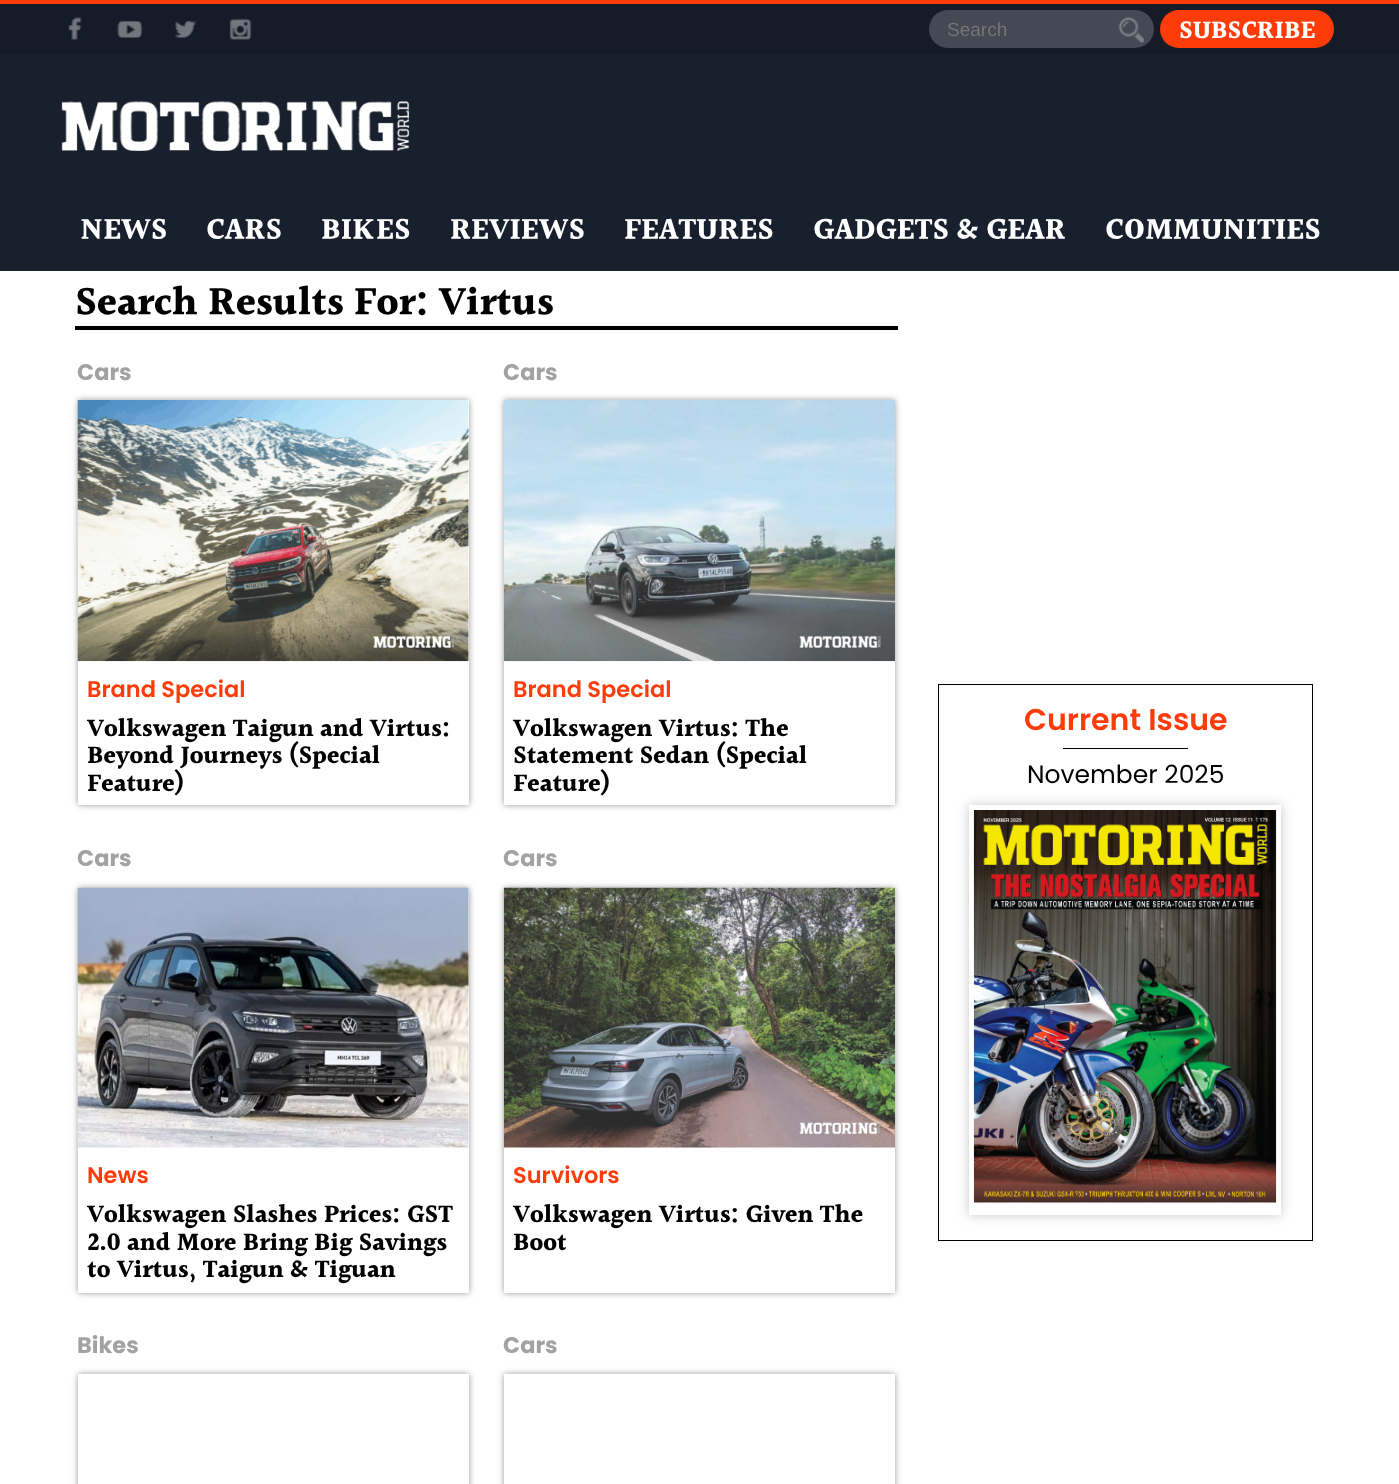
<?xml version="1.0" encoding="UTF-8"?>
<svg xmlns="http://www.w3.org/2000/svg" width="1399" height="1484">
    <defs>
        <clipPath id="clip1"><path d="M 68 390 H 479 V 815 H 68 Z M 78 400 H 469 V 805 H 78 Z" clip-rule="evenodd"/></clipPath>
        <filter id="blur1" x="-50%" y="-200%" width="200%" height="500%"><feGaussianBlur stdDeviation="3"/></filter>
        <clipPath id="clip2"><path d="M 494 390 H 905 V 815 H 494 Z M 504 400 H 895 V 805 H 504 Z" clip-rule="evenodd"/></clipPath>
        <clipPath id="clip3"><path d="M 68 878 H 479 V 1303 H 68 Z M 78 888 H 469 V 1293 H 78 Z" clip-rule="evenodd"/></clipPath>
        <clipPath id="clip4"><path d="M 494 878 H 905 V 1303 H 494 Z M 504 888 H 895 V 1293 H 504 Z" clip-rule="evenodd"/></clipPath>
        <clipPath id="clip5"><path d="M 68 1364 H 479 V 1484 H 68 Z M 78 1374 H 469 V 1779 H 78 Z" clip-rule="evenodd"/></clipPath>
        <clipPath id="clip6"><path d="M 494 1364 H 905 V 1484 H 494 Z M 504 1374 H 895 V 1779 H 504 Z" clip-rule="evenodd"/></clipPath>
        <clipPath id="clip7"><path d="M 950 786 H 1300 V 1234 H 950 Z M 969 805 H 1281 V 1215 H 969 Z" clip-rule="evenodd"/></clipPath>
        <filter id="blur2" x="-50%" y="-200%" width="200%" height="500%"><feGaussianBlur stdDeviation="6"/></filter>
    </defs>
    <rect width="100%" height="100%" fill="#FFFFFF"/>
    <rect x="0" y="4" width="1399" height="50" fill="#151B27"/>
    <rect x="0" y="0" width="1399" height="4" fill="#FE3C09"/>
    <image x="68" y="17" width="14" height="23" href="img_01.png"/>
    <image x="117" y="21" width="26" height="17" href="img_02.png"/>
    <image x="175" y="21" width="22" height="17" href="img_03.png"/>
    <image x="229" y="18" width="23" height="22" href="img_04.png"/>
    <rect x="929" y="10" width="225" height="38" rx="19" fill="#454954"/>
    <text x="947" y="36" font-family="Liberation Sans" font-size="19" fill="#757575">Search</text>
    <image x="1118" y="17" width="26" height="26" href="img_05.png"/>
    <rect x="1160" y="10" width="174" height="38" rx="19" fill="#FE3C09"/>
    <text x="1179" y="39" font-family="Halant" font-size="25" font-weight="700" fill="#FFFFFF">SUBSCRIBE</text>
    <rect x="0" y="54" width="1399" height="217" fill="#18202D"/>
    <image x="61" y="101" width="349" height="50" href="img_06.png"/>
    <text x="80" y="240" font-family="Halant" font-size="30" font-weight="700" fill="#FFFFFF">NEWS</text>
    <text x="206" y="240" font-family="Halant" font-size="30" font-weight="700" fill="#FFFFFF">CARS</text>
    <text x="321" y="240" font-family="Halant" font-size="30" font-weight="700" fill="#FFFFFF">BIKES</text>
    <text x="450" y="240" font-family="Halant" font-size="30" font-weight="700" fill="#FFFFFF">REVIEWS</text>
    <text x="624" y="240" font-family="Halant" font-size="30" font-weight="700" fill="#FFFFFF">FEATURES</text>
    <text x="813" y="240" font-family="Halant" font-size="30" font-weight="700" fill="#FFFFFF">GADGETS &amp; GEAR</text>
    <text x="1105" y="240" font-family="Halant" font-size="30" font-weight="700" fill="#FFFFFF">COMMUNITIES</text>
    <text x="75" y="316" font-family="Halant" font-size="40" font-weight="700" fill="#000000">Search Results For: Virtus</text>
    <rect x="75" y="326" width="823" height="4" fill="#000000"/>
    <text x="77" y="380" font-family="Poppins" font-size="22.5" font-weight="700" fill="#A1A2A3">Cars</text>
    <g clip-path="url(#clip1)">
        <rect x="78" y="400" width="391" height="405" fill="#999999" filter="url(#blur1)"/>
    </g>
    <image x="77" y="400" width="392" height="262" href="img_07.png"/>
    <text x="87" y="697" font-family="Poppins" font-size="22.5" font-weight="600" fill="#FE3C09">Brand Special</text>
    <rect x="468" y="705" width="1" height="100" fill="#FFFFFF"/>
    <text font-family="Halant" font-size="25" font-weight="700" fill="#000000">
        <tspan x="87" y="737">Volkswagen Taigun and Virtus:</tspan>
        <tspan x="87" y="764">Beyond Journeys (Special</tspan>
        <tspan x="87" y="792">Feature)</tspan>
    </text>
    <text x="503" y="380" font-family="Poppins" font-size="22.5" font-weight="700" fill="#A1A2A3">Cars</text>
    <g clip-path="url(#clip2)">
        <rect x="504" y="400" width="391" height="405" fill="#999999" filter="url(#blur1)"/>
    </g>
    <image x="503" y="400" width="392" height="262" href="img_08.png"/>
    <text x="513" y="697" font-family="Poppins" font-size="22.5" font-weight="600" fill="#FE3C09">Brand Special</text>
    <text font-family="Halant" font-size="25" font-weight="700" fill="#000000">
        <tspan x="513" y="737">Volkswagen Virtus: The</tspan>
        <tspan x="513" y="764">Statement Sedan (Special</tspan>
        <tspan x="513" y="792">Feature)</tspan>
    </text>
    <text x="77" y="866" font-family="Poppins" font-size="22.5" font-weight="700" fill="#A1A2A3">Cars</text>
    <g clip-path="url(#clip3)">
        <rect x="78" y="888" width="391" height="405" fill="#999999" filter="url(#blur1)"/>
    </g>
    <image x="77" y="887" width="392" height="261" href="img_09.png"/>
    <text x="87" y="1183" font-family="Poppins" font-size="22.5" font-weight="600" fill="#FE3C09">News</text>
    <rect x="78" y="1193" width="391" height="100" fill="#FFFFFF"/>
    <text font-family="Halant" font-size="25" font-weight="700" fill="#000000">
        <tspan x="87" y="1223">Volkswagen Slashes Prices: GST</tspan>
        <tspan x="87" y="1251">2.0 and More Bring Big Savings</tspan>
        <tspan x="87" y="1278">to Virtus, Taigun &amp; Tiguan</tspan>
    </text>
    <text x="503" y="866" font-family="Poppins" font-size="22.5" font-weight="700" fill="#A1A2A3">Cars</text>
    <g clip-path="url(#clip4)">
        <rect x="504" y="888" width="391" height="405" fill="#999999" filter="url(#blur1)"/>
    </g>
    <image x="503" y="887" width="392" height="261" href="img_10.png"/>
    <text x="513" y="1183" font-family="Poppins" font-size="22.5" font-weight="600" fill="#FE3C09">Survivors</text>
    <rect x="504" y="1292" width="391" height="1" fill="#FFFFFF"/>
    <text font-family="Halant" font-size="25" font-weight="700" fill="#000000">
        <tspan x="513" y="1223">Volkswagen Virtus: Given The</tspan>
        <tspan x="513" y="1251">Boot</tspan>
    </text>
    <text x="77" y="1353" font-family="Poppins" font-size="22.5" font-weight="700" fill="#A1A2A3">Bikes</text>
    <g clip-path="url(#clip5)">
        <rect x="78" y="1374" width="391" height="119" fill="#999999" filter="url(#blur1)"/>
    </g>
    <text x="503" y="1353" font-family="Poppins" font-size="22.5" font-weight="700" fill="#A1A2A3">Cars</text>
    <g clip-path="url(#clip6)">
        <rect x="504" y="1374" width="391" height="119" fill="#999999" filter="url(#blur1)"/>
    </g>
    <rect x="938.5" y="684.5" width="374" height="556" fill="none" stroke="#000000"/>
    <text x="1024" y="730" font-family="Poppins" font-size="30" font-weight="600" fill="#FE3C09">Current Issue</text>
    <rect x="1063" y="748" width="125" height="1" fill="#000000"/>
    <text x="1027" y="783" font-family="Poppins" font-size="25" fill="#000000">November 2025</text>
    <g clip-path="url(#clip7)">
        <rect x="969" y="805" width="312" height="410" fill="#C6C6C6" filter="url(#blur2)"/>
    </g>
    <image x="973" y="810" width="304" height="393" href="img_11.png"/>
</svg>
